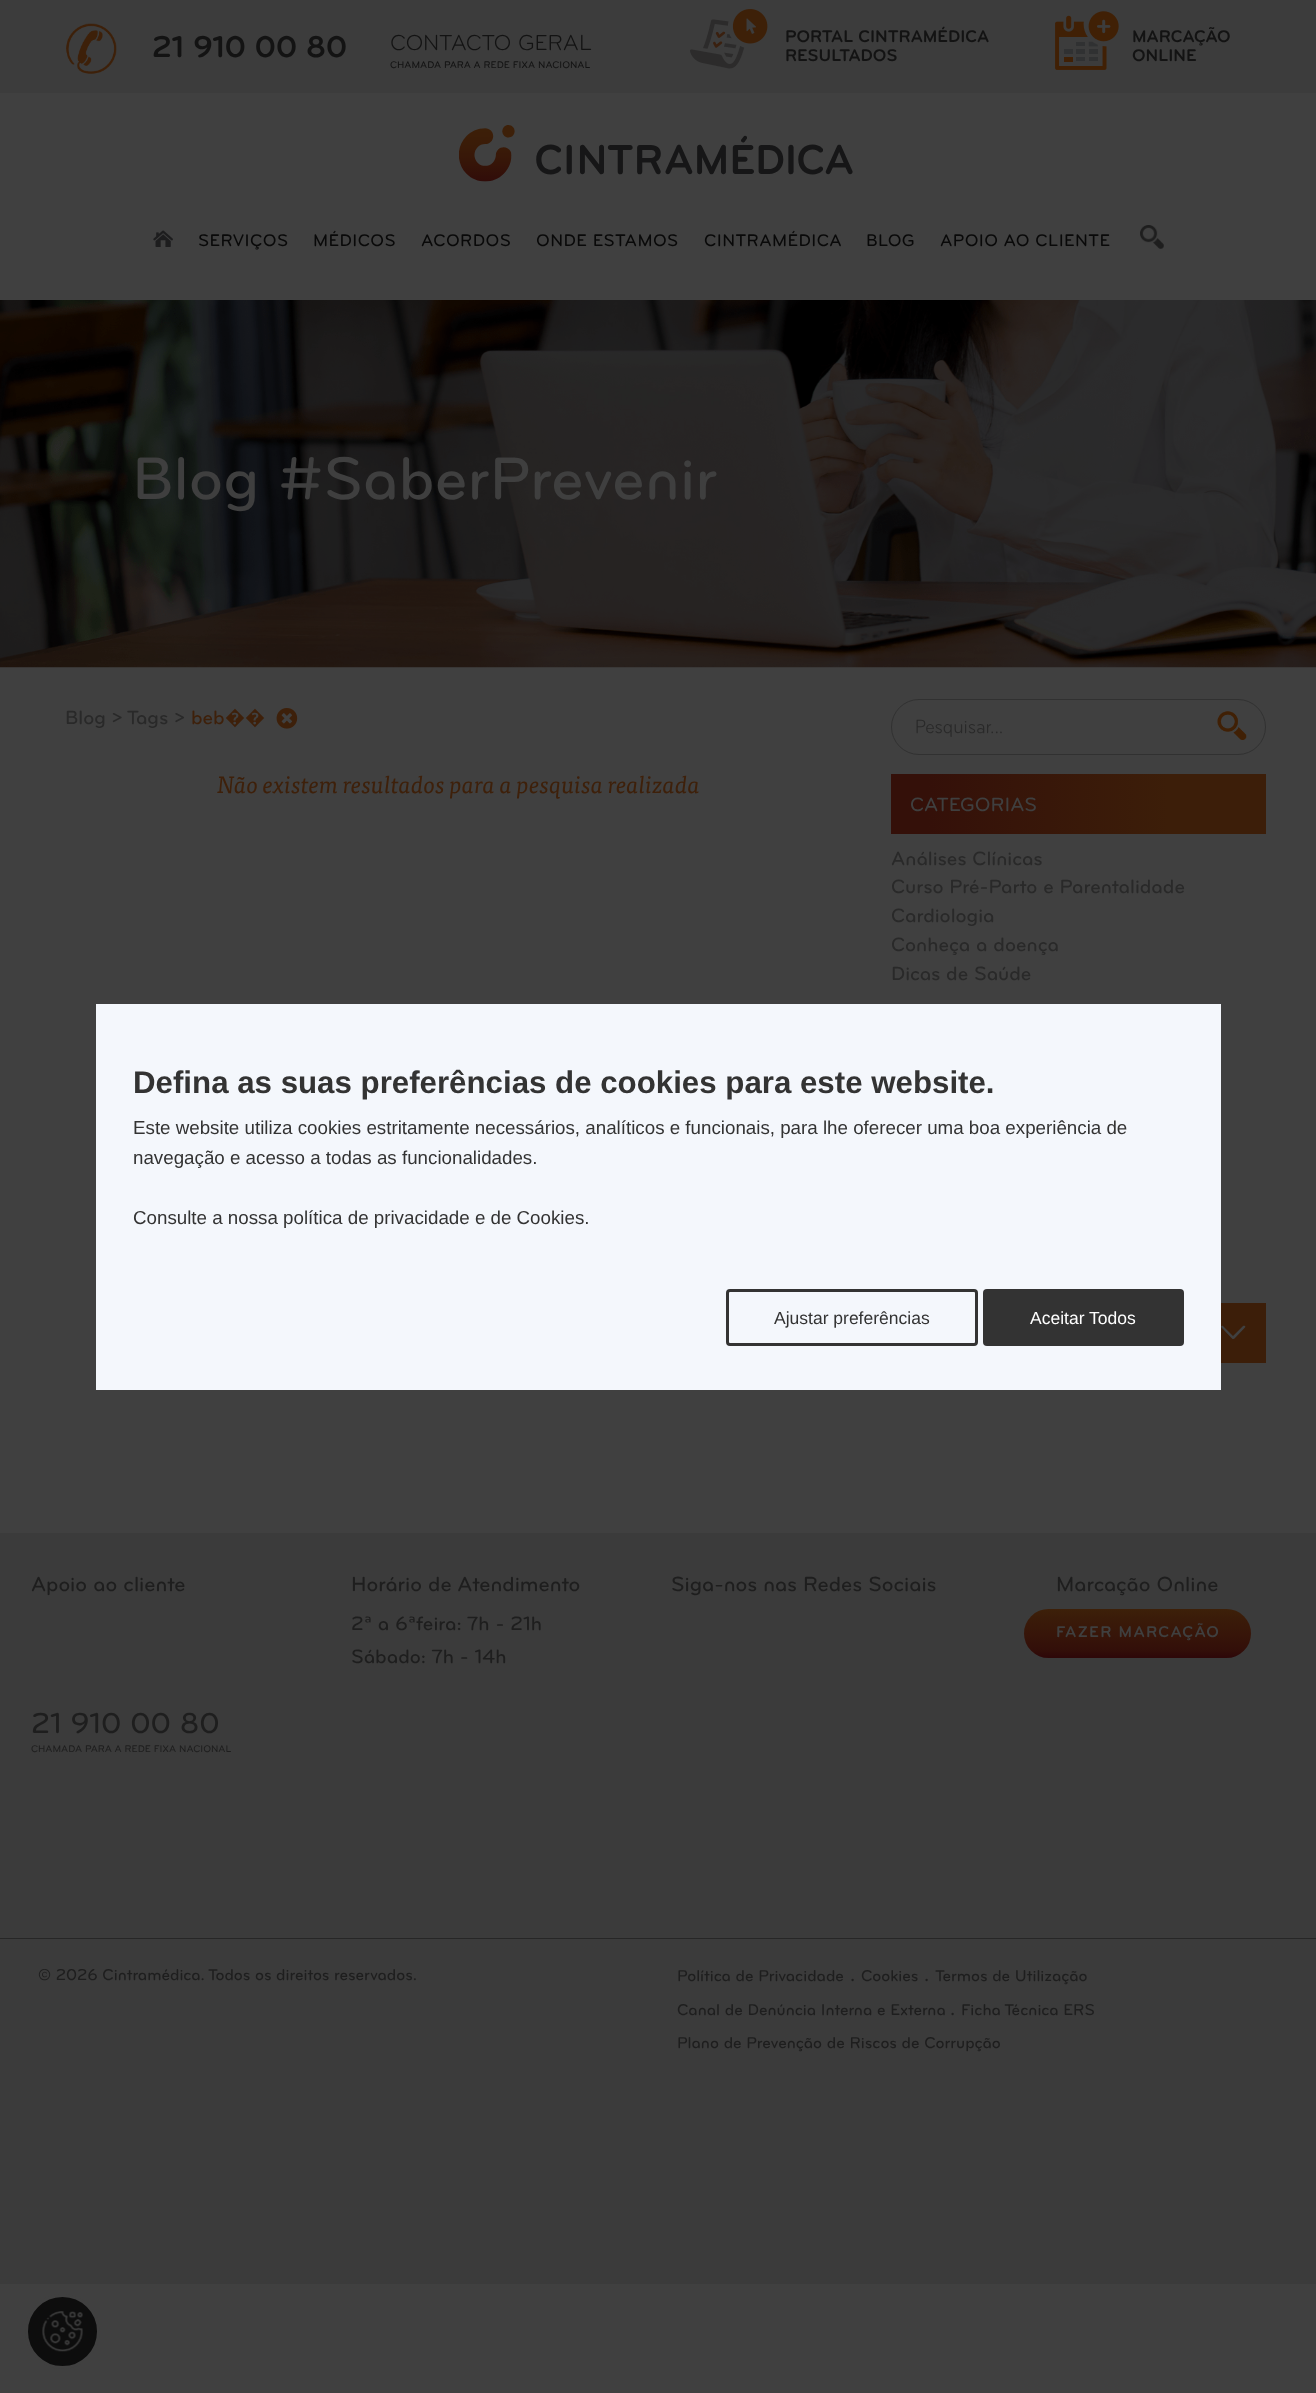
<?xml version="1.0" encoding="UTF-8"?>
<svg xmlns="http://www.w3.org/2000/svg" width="1316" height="2393">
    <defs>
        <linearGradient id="g1" gradientUnits="userSpaceOnUse" x1="1266" y1="804" x2="891" y2="804"><stop offset="0.26" stop-color="#3C1E09"/><stop offset="0.9" stop-color="#341009"/></linearGradient>
        <linearGradient id="g2" gradientUnits="userSpaceOnUse" x1="1266" y1="1333" x2="891" y2="1333"><stop offset="0.26" stop-color="#3C1E09"/><stop offset="0.9" stop-color="#341009"/></linearGradient>
        <linearGradient id="g3" gradientUnits="userSpaceOnUse" x1="1138" y1="1609" x2="1138" y2="1658"><stop offset="0" stop-color="#3D2009"/><stop offset="0.2" stop-color="#3A1B09"/><stop offset="0.52" stop-color="#371509"/><stop offset="0.86" stop-color="#320E09"/><stop offset="0.97" stop-color="#2E0809"/></linearGradient>
    </defs>
    <rect width="100%" height="100%" fill="#404040"/>
    <rect x="0" y="0" width="1316" height="93" fill="#3C3C3C"/>
    <image x="66" y="23" width="51" height="51" href="img_01.png"/>
    <text x="152" y="57" font-family="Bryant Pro" font-size="31.25" font-weight="700" fill="#131313">21 910 00 80</text>
    <text x="390" y="50" font-family="Bryant Pro" font-size="22.5" fill="#131313">CONTACTO GERAL</text>
    <text x="390" y="68" font-family="'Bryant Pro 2'" font-size="10" font-weight="500" fill="#131313">CHAMADA PARA A REDE FIXA NACIONAL</text>
    <image x="690" y="9" width="78" height="60" href="img_02.png"/>
    <text font-family="Bryant Pro" font-size="17.5" font-weight="700" fill="#131313">
        <tspan x="785" y="42">PORTAL CINTRAMÉDICA</tspan>
        <tspan x="785" y="61">RESULTADOS</tspan>
    </text>
    <image x="1055" y="11" width="64" height="59" href="img_03.png"/>
    <text font-family="Bryant Pro" font-size="17.5" font-weight="700" fill="#131313">
        <tspan x="1132" y="42">MARCAÇÃO</tspan>
        <tspan x="1132" y="61">ONLINE</tspan>
    </text>
    <image x="459" y="125" width="394" height="57" href="img_04.png"/>
    <image x="153" y="230" width="20" height="17" href="img_05.png"/>
    <text x="198" y="246" font-family="Bryant Pro" font-size="17.5" font-weight="500" letter-spacing="0.4" fill="#090909">SERVIÇOS</text>
    <text x="313" y="246" font-family="Bryant Pro" font-size="17.5" font-weight="500" letter-spacing="0.4" fill="#090909">MÉDICOS</text>
    <text x="421" y="246" font-family="Bryant Pro" font-size="17.5" font-weight="500" letter-spacing="0.4" fill="#090909">ACORDOS</text>
    <text x="536" y="246" font-family="Bryant Pro" font-size="17.5" font-weight="500" letter-spacing="0.4" fill="#090909">ONDE ESTAMOS</text>
    <text x="704" y="246" font-family="Bryant Pro" font-size="17.5" font-weight="500" letter-spacing="0.4" fill="#090909">CINTRAMÉDICA</text>
    <text x="866" y="246" font-family="Bryant Pro" font-size="17.5" font-weight="500" letter-spacing="0.4" fill="#090909">BLOG</text>
    <text x="940" y="246" font-family="Bryant Pro" font-size="17.5" font-weight="500" letter-spacing="0.4" fill="#090909">APOIO AO CLIENTE</text>
    <image x="1140" y="225" width="24" height="24" href="img_06.png"/>
    <image x="0" y="300" width="1316" height="368" href="img_07.png"/>
    <text x="132" y="499" font-family="Bryant Pro" font-size="62.5" font-weight="500" fill="#3F3F3F">Blog #SaberPrevenir</text>
    <text x="65" y="724" font-family="Bryant Pro" font-size="20" font-weight="500" fill="#292929">Blog &gt; Tags &gt;</text>
    <text x="191" y="724" font-family="Bryant Pro" font-size="20" font-weight="500" fill="#3E200A">beb</text>
    <text x="225" y="724" font-family="Noto Sans" font-size="20" fill="#3E200A">��</text>
    <image x="276" y="708" width="22" height="21" href="img_08.png"/>
    <text x="217" y="793" font-family="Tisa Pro" font-size="23.75" font-style="italic" fill="#3E200A">Não existem resultados para a pesquisa realizada</text>
    <rect x="891.5" y="699.5" width="374" height="55" rx="27.5" fill="none" stroke="#313131"/>
    <text x="915" y="733" font-family="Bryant" font-size="20" fill="#292929">Pesquisar...</text>
    <image x="1217" y="711" width="30" height="29" href="img_09.png"/>
    <rect x="891" y="774" width="375" height="60" fill="url(#g1)"/>
    <text x="910" y="811" font-family="Bryant Pro" font-size="20" font-weight="500" fill="#3F3F3F">CATEGORIAS</text>
    <text font-family="Bryant Pro" font-size="20" font-weight="500" fill="#292929">
        <tspan x="891" y="865">Análises Clínicas</tspan>
        <tspan x="891" y="893">Curso Pré-Parto e Parentalidade</tspan>
        <tspan x="891" y="922">Cardiologia</tspan>
        <tspan x="891" y="951">Conheça a doença</tspan>
        <tspan x="891" y="980">Dicas de Saúde</tspan>
    </text>
    <rect x="1221" y="1303" width="45" height="60" fill="url(#g2)"/>
    <path d="M 1245 1327.5 L 1234.5 1338.5 C 1234 1339 1233 1339 1232.5 1338.5 C 1232 1338 1232 1337 1232.5 1336.5 L 1243 1326 C 1243.5 1325.5 1244.5 1325.5 1245 1326 C 1245.5 1326.5 1245.5 1327 1245 1327.5 Z" fill="#404040"/>
    <path d="M 1223 1326 L 1233.5 1336.5 C 1234 1337 1234 1338 1233.5 1338.5 C 1233 1339 1232.5 1339 1232 1338.5 L 1221.5 1327.5 C 1221 1327 1221 1326.5 1221.5 1326 C 1222 1325.5 1222.5 1325.5 1223 1326 Z" fill="#404040"/>
    <rect x="96" y="1004" width="1125" height="386" fill="#F4F7FC"/>
    <text x="133" y="1093" font-family="Liberation Sans" font-size="31.25" font-weight="700" fill="#333333">Defina as suas preferências de cookies para este website.</text>
    <text font-family="Liberation Sans" font-size="18.75" fill="#333333">
        <tspan x="133" y="1134">Este website utiliza cookies estritamente necessários, analíticos e funcionais, para lhe oferecer uma boa experiência de</tspan>
        <tspan x="133" y="1164">navegação e acesso a todas as funcionalidades.</tspan>
    </text>
    <text x="133" y="1224" font-family="Liberation Sans" font-size="18.75" fill="#333333">Consulte a nossa política de privacidade e de Cookies.</text>
    <rect x="727.5" y="1290.5" width="249" height="54" rx="2.5" fill="none" stroke="#333333" stroke-width="3"/>
    <text x="774" y="1324" font-family="Liberation Sans" font-size="17.5" fill="#333333">Ajustar preferências</text>
    <rect x="983" y="1289" width="201" height="57" rx="4" fill="#333333"/>
    <text x="1030" y="1324" font-family="Liberation Sans" font-size="17.5" fill="#FFFFFF">Aceitar Todos</text>
    <circle cx="62.5" cy="2331.5" r="36" fill="#0D0D0D" stroke="#404040" stroke-width="3"/>
    <image x="42" y="2311" width="41" height="41" href="img_10.png"/>
    <rect x="0" y="1533" width="1316" height="751" fill="#3B3B3B"/>
    <text x="31" y="1591" font-family="Bryant Pro" font-size="21.25" font-weight="500" fill="#1E1E1E">Apoio ao cliente</text>
    <text x="31" y="1733" font-family="Bryant Pro" font-size="30" font-weight="500" fill="#1E1E1E">21 910 00 80</text>
    <text x="31" y="1752" font-family="'Bryant Pro 2'" font-size="10" font-weight="500" fill="#1E1E1E">CHAMADA PARA A REDE FIXA NACIONAL</text>
    <text x="351" y="1591" font-family="Bryant Pro" font-size="21.25" font-weight="500" fill="#1E1E1E">Horário de Atendimento</text>
    <text font-family="Bryant Pro" font-size="20" font-weight="500" fill="#1E1E1E">
        <tspan x="351" y="1630">2ª a 6ªfeira: 7h - 21h</tspan>
        <tspan x="351" y="1663">Sábado: 7h - 14h</tspan>
    </text>
    <text x="671" y="1591" font-family="Bryant Pro" font-size="21.25" font-weight="500" fill="#1E1E1E">Siga-nos nas Redes Sociais</text>
    <text x="1056" y="1591" font-family="Bryant Pro" font-size="21.25" font-weight="500" fill="#1E1E1E">Marcação Online</text>
    <rect x="1024" y="1609" width="227" height="49" rx="24.5" fill="url(#g3)"/>
    <text x="1056" y="1637" font-family="Bryant Pro" font-size="16.25" font-weight="700" letter-spacing="1.25" fill="#3F3F3F">FAZER MARCAÇÃO</text>
    <rect x="0" y="1938" width="1316" height="1" fill="#262626"/>
    <text x="38" y="1980" font-family="Bryant Pro" font-size="16.25" font-weight="500" fill="#1E1E1E">© 2026 Cintramédica. Todos os direitos reservados.</text>
    <text x="677" y="1981" font-family="Bryant Pro" font-size="16.25" font-weight="500" fill="#1E1E1E">Política de Privacidade</text>
    <text x="850" y="1981" font-family="Bryant Pro" font-size="20" font-weight="500" fill="#1E1E1E">.</text>
    <text x="861" y="1981" font-family="Bryant Pro" font-size="16.25" font-weight="500" fill="#1E1E1E">Cookies</text>
    <text x="924" y="1981" font-family="Bryant Pro" font-size="20" font-weight="500" fill="#1E1E1E">.</text>
    <text x="935" y="1981" font-family="Bryant Pro" font-size="16.25" font-weight="500" fill="#1E1E1E">Termos de Utilização</text>
    <text x="677" y="2015" font-family="Bryant Pro" font-size="16.25" font-weight="500" fill="#1E1E1E">Canal de Denúncia Interna e Externa</text>
    <text x="950" y="2015" font-family="Bryant Pro" font-size="20" font-weight="500" fill="#1E1E1E">.</text>
    <text x="961" y="2015" font-family="Bryant Pro" font-size="16.25" font-weight="500" fill="#1E1E1E">Ficha Técnica ERS</text>
    <text x="677" y="2048" font-family="Bryant Pro" font-size="16.25" font-weight="500" fill="#1E1E1E">Plano de Prevenção de Riscos de Corrupção</text>
</svg>
